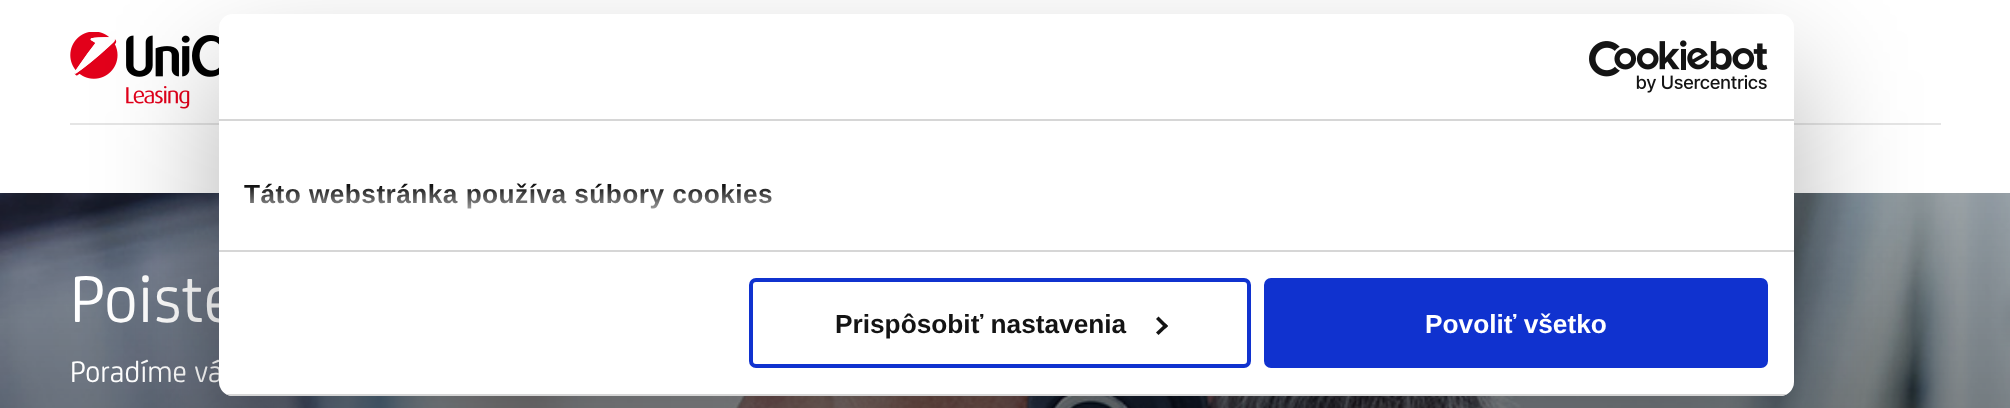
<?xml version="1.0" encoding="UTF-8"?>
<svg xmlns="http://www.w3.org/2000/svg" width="2010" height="408">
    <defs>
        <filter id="blur1" x="-50%" y="-200%" width="200%" height="500%"><feGaussianBlur stdDeviation="59.5"/></filter>
        <linearGradient id="g1" gradientUnits="userSpaceOnUse" x1="995" y1="250" x2="995" y2="186"><stop offset="0" stop-color="#FFFFFF"/><stop offset="0.5" stop-color="#FFFFFF" stop-opacity="0.8"/><stop offset="1" stop-color="#FFFFFF" stop-opacity="0"/></linearGradient>
        <clipPath id="clip1"><rect x="219" y="14" width="1575" height="382" rx="14"/></clipPath>
    </defs>
    <rect width="100%" height="100%" fill="#FFFFFF"/>
    <image x="70" y="32" width="149" height="77" href="img_01.png"/>
    <rect x="70" y="123" width="1871" height="2" fill="#E5E5E5"/>
    <image x="0" y="193" width="2010" height="215" href="img_02.png"/>
    <text x="70" y="322" font-family="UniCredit" font-size="70" fill="#FFFFFF">Poiste</text>
    <text x="70" y="382" font-family="UniCredit" font-size="31.5" fill="#FFFFFF">Poradíme vá</text>
    <rect x="219" y="70" width="1575" height="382" rx="14" fill="#000000" fill-opacity="0.3" filter="url(#blur1)"/>
    <rect x="219" y="14" width="1575" height="382" rx="14" fill="#FFFFFF"/>
    <rect x="219" y="119" width="1575" height="2" fill="#D6D6D6"/>
    <image x="1589" y="40" width="179" height="53" href="img_03.png"/>
    <rect x="219" y="250" width="1575" height="2" fill="#D6D6D6"/>
    <text x="244" y="203" font-family="Liberation Sans" font-size="26.25" font-weight="700" letter-spacing="0.45" fill="#141414">Táto webstránka používa súbory cookies</text>
    <rect x="244" y="187" width="528" height="22" fill="url(#g1)"/>
    <g clip-path="url(#clip1)">
        <rect x="219" y="394" width="1575" height="2" fill="#D6D6D6"/>
    </g>
    <rect x="751" y="280" width="498" height="86" rx="5" fill="none" stroke="#1032CF" stroke-width="4"/>
    <text x="835" y="333" font-family="Liberation Sans" font-size="26.25" font-weight="700" fill="#141414">Prispôsobiť nastavenia</text>
    <path d="M 1158.5 316.5 L 1168 326 L 1165.5 328.5 L 1156 319 Z" fill="#141414"/>
    <path d="M 1165.5 323.5 L 1168 326 L 1158.5 335 L 1156 332.5 Z" fill="#141414"/>
    <rect x="1266" y="280" width="500" height="86" rx="5" fill="#1032CF" stroke="#1032CF" stroke-width="4"/>
    <text x="1425" y="333" font-family="Liberation Sans" font-size="26.25" font-weight="700" fill="#FFFFFF">Povoliť všetko</text>
</svg>
